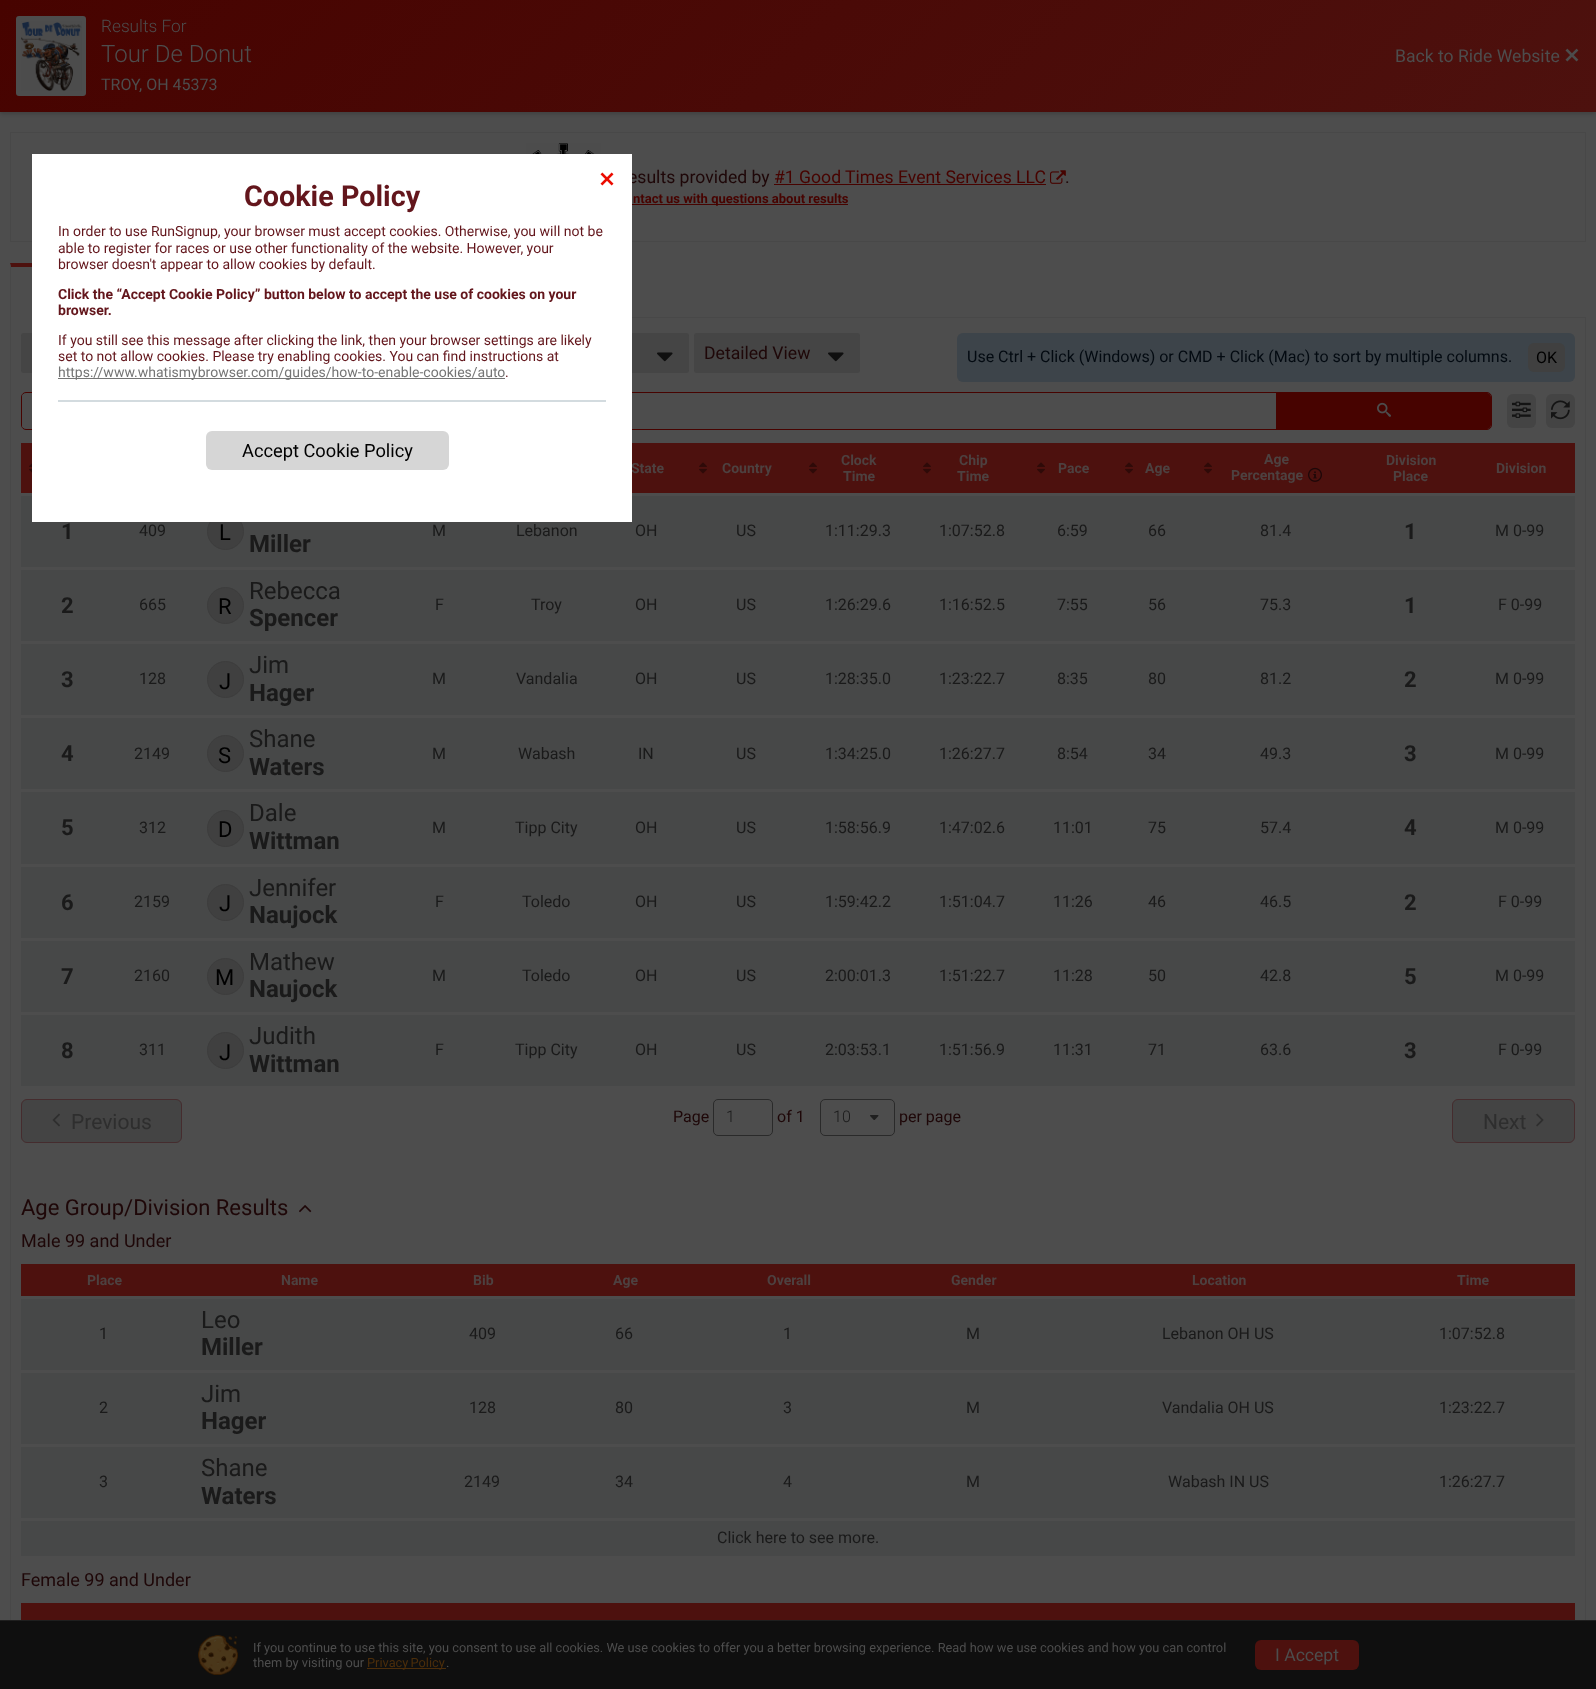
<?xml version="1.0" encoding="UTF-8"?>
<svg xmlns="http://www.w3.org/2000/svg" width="1596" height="1689">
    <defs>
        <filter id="blur1" x="-50%" y="-200%" width="200%" height="500%"><feGaussianBlur stdDeviation="2"/></filter>
        <linearGradient id="g1" gradientUnits="userSpaceOnUse" x1="1225" y1="483" x2="371" y2="-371"><stop offset="0" stop-color="#4D110E"/><stop offset="1" stop-color="#470300"/></linearGradient>
        <clipPath id="clip1"><rect x="22" y="393" width="1469" height="36" rx="4"/></clipPath>
    </defs>
    <rect width="100%" height="100%" fill="#4D4D4D"/>
    <rect x="0" y="2" width="1596" height="112" fill="#000000" fill-opacity="0.18" filter="url(#blur1)"/>
    <rect x="0" y="0" width="1596" height="112" fill="url(#g1)"/>
    <rect x="16" y="16" width="70" height="80" rx="3" fill="#4D4D4D"/>
    <image x="21" y="21" width="61" height="70" href="img_01.png"/>
    <text x="101" y="32" font-family="Roboto" font-size="17.25" font-weight="300" fill="#4D4D4D">Results For</text>
    <text x="101" y="62" font-family="Roboto" font-size="24" font-weight="300" fill="#4D4D4D">Tour De Donut</text>
    <text x="101" y="90" font-family="Roboto" font-size="16" fill="#4D4D4D">TROY, OH 45373</text>
    <text x="1395" y="62" font-family="Roboto" font-size="17.6" fill="#4D4D4D">Back to Ride Website</text>
    <image x="1565" y="48" width="14" height="14" href="img_02.png"/>
    <rect x="10.5" y="132.5" width="1575" height="109" fill="none" stroke="#484848"/>
    <image x="526" y="143" width="75" height="11" href="img_03.png"/>
    <text x="628" y="183" font-family="Roboto" font-size="17.6" fill="#1E0708">esults provided by</text>
    <text x="774" y="183" font-family="Roboto" font-size="17.6" fill="#470300">#1 Good Times Event Services LLC</text>
    <rect x="774" y="184" width="272" height="1" fill="#470300"/>
    <image x="1050" y="170" width="16" height="14" href="img_04.png"/>
    <text x="1065" y="183" font-family="Roboto" font-size="17.6" fill="#1E0708">.</text>
    <rect x="632" y="204" width="216" height="1" fill="#470300"/>
    <text x="633" y="203" font-family="Roboto" font-size="13" font-weight="700" fill="#470300">ntact us with questions about results</text>
    <rect x="10.5" y="317.5" width="1575" height="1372" fill="none" stroke="#484848"/>
    <rect x="10" y="317" width="22" height="1" fill="#4D4D4D"/>
    <path d="M 10 263 H 201 L 200 267 H 11 Z" fill="#4D110E"/>
    <path d="M 10 318 V 263 L 11 267 V 318 Z" fill="#484848"/>
    <rect x="21" y="333" width="100" height="40" rx="3" fill="#454545"/>
    <rect x="463" y="333" width="226" height="40" rx="3" fill="#454545"/>
    <image x="657" y="352" width="16" height="10" href="img_05.png"/>
    <rect x="694" y="333" width="166" height="40" rx="3" fill="#454545"/>
    <text x="704" y="359" font-family="Roboto" font-size="17.6" fill="#1E0708">Detailed View</text>
    <image x="828" y="352" width="16" height="10" href="img_05.png"/>
    <rect x="957" y="333" width="618" height="49" rx="6" fill="#3D444A"/>
    <text x="967" y="362" font-family="Roboto" font-size="16" fill="#030A11">Use Ctrl + Click (Windows) or CMD + Click (Mac) to sort by multiple columns.</text>
    <rect x="1528" y="343" width="37" height="29" rx="6" fill="#404040"/>
    <text x="1536" y="363" font-family="Roboto" font-size="16" fill="#000000">OK</text>
    <rect x="21.5" y="392.5" width="1470" height="37" rx="4.5" fill="none" stroke="#470300"/>
    <g clip-path="url(#clip1)">
        <rect x="22" y="394" width="1254" height="34" fill="#4D4D4D"/>
    </g>
    <path d="M 1276 393 H 1487 C 1489 393 1491 395 1491 397 V 425 C 1491 427 1489 429 1487 429 H 1276 Z" fill="#470300"/>
    <image x="1377" y="402" width="14" height="15" href="img_06.png"/>
    <rect x="1507" y="394" width="29" height="34" rx="6" fill="#444444"/>
    <image x="1512" y="401" width="19" height="17" href="img_07.png"/>
    <rect x="1546" y="394" width="29" height="34" rx="6" fill="#444444"/>
    <image x="1551" y="400" width="19" height="20" href="img_08.png"/>
    <rect x="21" y="443" width="1554" height="50" fill="#4D110E"/>
    <image x="29" y="463" width="3" height="10" href="img_09.png"/>
    <text x="631" y="473" font-family="Roboto" font-size="14" font-weight="700" fill="#4D4140">State</text>
    <image x="699" y="462" width="8" height="12" href="img_10.png"/>
    <text x="722" y="473" font-family="Roboto" font-size="14" font-weight="700" fill="#4D4140">Country</text>
    <text x="841" y="465" font-family="Roboto" font-size="14" font-weight="700" fill="#4D4140">Clock</text>
    <image x="809" y="462" width="8" height="12" href="img_10.png"/>
    <text x="843" y="481" font-family="Roboto" font-size="14" font-weight="700" fill="#4D4140">Time</text>
    <image x="923" y="462" width="8" height="12" href="img_10.png"/>
    <text x="959" y="465" font-family="Roboto" font-size="14" font-weight="700" fill="#4D4140">Chip</text>
    <text x="957" y="481" font-family="Roboto" font-size="14" font-weight="700" fill="#4D4140">Time</text>
    <image x="1037" y="462" width="8" height="12" href="img_10.png"/>
    <text x="1058" y="473" font-family="Roboto" font-size="14" font-weight="700" fill="#4D4140">Pace</text>
    <image x="1125" y="462" width="8" height="12" href="img_10.png"/>
    <text x="1145" y="473" font-family="Roboto" font-size="14" font-weight="700" fill="#4D4140">Age</text>
    <image x="1204" y="462" width="8" height="12" href="img_10.png"/>
    <text x="1264" y="464" font-family="Roboto" font-size="14" font-weight="700" fill="#4D4140">Age</text>
    <image x="1308" y="467" width="14" height="15" href="img_11.png"/>
    <text x="1231" y="480" font-family="Roboto" font-size="14" font-weight="700" fill="#4D4140">Percentage</text>
    <text x="1386" y="465" font-family="Roboto" font-size="14" font-weight="700" fill="#4D4140">Division</text>
    <text x="1393" y="481" font-family="Roboto" font-size="14" font-weight="700" fill="#4D4140">Place</text>
    <text x="1496" y="473" font-family="Roboto" font-size="14" font-weight="700" fill="#4D4140">Division</text>
    <rect x="21" y="496" width="1554" height="71" fill="#474848"/>
    <text x="61" y="539" font-family="Roboto" font-size="22" font-weight="700" fill="#1A1A1A">1</text>
    <text x="139" y="536" font-family="Roboto" font-size="16" fill="#1A1A1A">409</text>
    <circle cx="225.5" cy="531.5" r="18" fill="#404040" stroke="#3D3D3D"/>
    <text x="219" y="540" font-family="Roboto" font-size="22" fill="#000000">L</text>
    <text x="249" y="552" font-family="Roboto" font-size="24" font-weight="700" fill="#1A1A1A">Miller</text>
    <text x="432" y="536" font-family="Roboto" font-size="16" fill="#1A1A1A">M</text>
    <text x="516" y="536" font-family="Roboto" font-size="16" fill="#1A1A1A">Lebanon</text>
    <text x="635" y="536" font-family="Roboto" font-size="16" fill="#1A1A1A">OH</text>
    <text x="736" y="536" font-family="Roboto" font-size="16" fill="#1A1A1A">US</text>
    <text x="825" y="536" font-family="Roboto" font-size="16" fill="#1A1A1A">1:11:29.3</text>
    <text x="939" y="536" font-family="Roboto" font-size="16" fill="#1A1A1A">1:07:52.8</text>
    <text x="1057" y="536" font-family="Roboto" font-size="16" fill="#1A1A1A">6:59</text>
    <text x="1148" y="536" font-family="Roboto" font-size="16" fill="#1A1A1A">66</text>
    <text x="1260" y="536" font-family="Roboto" font-size="16" fill="#1A1A1A">81.4</text>
    <text x="1404" y="539" font-family="Roboto" font-size="22" font-weight="700" fill="#1A1A1A">1</text>
    <text x="1495" y="536" font-family="Roboto" font-size="16" fill="#1A1A1A">M 0-99</text>
    <rect x="21" y="570" width="1554" height="71" fill="#474848"/>
    <text x="61" y="613" font-family="Roboto" font-size="22" font-weight="700" fill="#1A1A1A">2</text>
    <text x="139" y="610" font-family="Roboto" font-size="16" fill="#1A1A1A">665</text>
    <circle cx="225.5" cy="605.5" r="18" fill="#404040" stroke="#3D3D3D"/>
    <text x="218" y="614" font-family="Roboto" font-size="22" fill="#000000">R</text>
    <text x="249" y="599" font-family="Roboto" font-size="24" fill="#1A1A1A">Rebecca</text>
    <text x="249" y="626" font-family="Roboto" font-size="24" font-weight="700" fill="#1A1A1A">Spencer</text>
    <text x="435" y="610" font-family="Roboto" font-size="16" fill="#1A1A1A">F</text>
    <text x="531" y="610" font-family="Roboto" font-size="16" fill="#1A1A1A">Troy</text>
    <text x="635" y="610" font-family="Roboto" font-size="16" fill="#1A1A1A">OH</text>
    <text x="736" y="610" font-family="Roboto" font-size="16" fill="#1A1A1A">US</text>
    <text x="825" y="610" font-family="Roboto" font-size="16" fill="#1A1A1A">1:26:29.6</text>
    <text x="939" y="610" font-family="Roboto" font-size="16" fill="#1A1A1A">1:16:52.5</text>
    <text x="1057" y="610" font-family="Roboto" font-size="16" fill="#1A1A1A">7:55</text>
    <text x="1148" y="610" font-family="Roboto" font-size="16" fill="#1A1A1A">56</text>
    <text x="1260" y="610" font-family="Roboto" font-size="16" fill="#1A1A1A">75.3</text>
    <text x="1404" y="613" font-family="Roboto" font-size="22" font-weight="700" fill="#1A1A1A">1</text>
    <text x="1498" y="610" font-family="Roboto" font-size="16" fill="#1A1A1A">F 0-99</text>
    <rect x="21" y="644" width="1554" height="71" fill="#474848"/>
    <text x="61" y="687" font-family="Roboto" font-size="22" font-weight="700" fill="#1A1A1A">3</text>
    <text x="139" y="684" font-family="Roboto" font-size="16" fill="#1A1A1A">128</text>
    <circle cx="225.5" cy="679.5" r="18" fill="#404040" stroke="#3D3D3D"/>
    <text x="219" y="689" font-family="Roboto" font-size="22" fill="#000000">J</text>
    <text x="249" y="673" font-family="Roboto" font-size="24" fill="#1A1A1A">Jim</text>
    <text x="249" y="701" font-family="Roboto" font-size="24" font-weight="700" fill="#1A1A1A">Hager</text>
    <text x="432" y="684" font-family="Roboto" font-size="16" fill="#1A1A1A">M</text>
    <text x="516" y="684" font-family="Roboto" font-size="16" fill="#1A1A1A">Vandalia</text>
    <text x="635" y="684" font-family="Roboto" font-size="16" fill="#1A1A1A">OH</text>
    <text x="736" y="684" font-family="Roboto" font-size="16" fill="#1A1A1A">US</text>
    <text x="825" y="684" font-family="Roboto" font-size="16" fill="#1A1A1A">1:28:35.0</text>
    <text x="939" y="684" font-family="Roboto" font-size="16" fill="#1A1A1A">1:23:22.7</text>
    <text x="1057" y="684" font-family="Roboto" font-size="16" fill="#1A1A1A">8:35</text>
    <text x="1148" y="684" font-family="Roboto" font-size="16" fill="#1A1A1A">80</text>
    <text x="1260" y="684" font-family="Roboto" font-size="16" fill="#1A1A1A">81.2</text>
    <text x="1404" y="687" font-family="Roboto" font-size="22" font-weight="700" fill="#1A1A1A">2</text>
    <text x="1495" y="684" font-family="Roboto" font-size="16" fill="#1A1A1A">M 0-99</text>
    <rect x="21" y="718" width="1554" height="71" fill="#474848"/>
    <text x="61" y="761" font-family="Roboto" font-size="22" font-weight="700" fill="#1A1A1A">4</text>
    <text x="134" y="759" font-family="Roboto" font-size="16" fill="#1A1A1A">2149</text>
    <circle cx="225.5" cy="753.5" r="18" fill="#404040" stroke="#3D3D3D"/>
    <text x="218" y="763" font-family="Roboto" font-size="22" fill="#000000">S</text>
    <text x="249" y="747" font-family="Roboto" font-size="24" fill="#1A1A1A">Shane</text>
    <text x="249" y="775" font-family="Roboto" font-size="24" font-weight="700" fill="#1A1A1A">Waters</text>
    <text x="432" y="759" font-family="Roboto" font-size="16" fill="#1A1A1A">M</text>
    <text x="518" y="759" font-family="Roboto" font-size="16" fill="#1A1A1A">Wabash</text>
    <text x="638" y="759" font-family="Roboto" font-size="16" fill="#1A1A1A">IN</text>
    <text x="736" y="759" font-family="Roboto" font-size="16" fill="#1A1A1A">US</text>
    <text x="825" y="759" font-family="Roboto" font-size="16" fill="#1A1A1A">1:34:25.0</text>
    <text x="939" y="759" font-family="Roboto" font-size="16" fill="#1A1A1A">1:26:27.7</text>
    <text x="1057" y="759" font-family="Roboto" font-size="16" fill="#1A1A1A">8:54</text>
    <text x="1148" y="759" font-family="Roboto" font-size="16" fill="#1A1A1A">34</text>
    <text x="1260" y="759" font-family="Roboto" font-size="16" fill="#1A1A1A">49.3</text>
    <text x="1404" y="761" font-family="Roboto" font-size="22" font-weight="700" fill="#1A1A1A">3</text>
    <text x="1495" y="759" font-family="Roboto" font-size="16" fill="#1A1A1A">M 0-99</text>
    <rect x="21" y="792" width="1554" height="72" fill="#474848"/>
    <text x="61" y="835" font-family="Roboto" font-size="22" font-weight="700" fill="#1A1A1A">5</text>
    <text x="139" y="833" font-family="Roboto" font-size="16" fill="#1A1A1A">312</text>
    <circle cx="225.5" cy="828.5" r="18" fill="#404040" stroke="#3D3D3D"/>
    <text x="218" y="837" font-family="Roboto" font-size="22" fill="#000000">D</text>
    <text x="249" y="821" font-family="Roboto" font-size="24" fill="#1A1A1A">Dale</text>
    <text x="249" y="849" font-family="Roboto" font-size="24" font-weight="700" fill="#1A1A1A">Wittman</text>
    <text x="432" y="833" font-family="Roboto" font-size="16" fill="#1A1A1A">M</text>
    <text x="515" y="833" font-family="Roboto" font-size="16" fill="#1A1A1A">Tipp City</text>
    <text x="635" y="833" font-family="Roboto" font-size="16" fill="#1A1A1A">OH</text>
    <text x="736" y="833" font-family="Roboto" font-size="16" fill="#1A1A1A">US</text>
    <text x="825" y="833" font-family="Roboto" font-size="16" fill="#1A1A1A">1:58:56.9</text>
    <text x="939" y="833" font-family="Roboto" font-size="16" fill="#1A1A1A">1:47:02.6</text>
    <text x="1053" y="833" font-family="Roboto" font-size="16" fill="#1A1A1A">11:01</text>
    <text x="1148" y="833" font-family="Roboto" font-size="16" fill="#1A1A1A">75</text>
    <text x="1260" y="833" font-family="Roboto" font-size="16" fill="#1A1A1A">57.4</text>
    <text x="1404" y="835" font-family="Roboto" font-size="22" font-weight="700" fill="#1A1A1A">4</text>
    <text x="1495" y="833" font-family="Roboto" font-size="16" fill="#1A1A1A">M 0-99</text>
    <rect x="21" y="867" width="1554" height="71" fill="#474848"/>
    <text x="61" y="910" font-family="Roboto" font-size="22" font-weight="700" fill="#1A1A1A">6</text>
    <text x="134" y="907" font-family="Roboto" font-size="16" fill="#1A1A1A">2159</text>
    <circle cx="225.5" cy="902.5" r="18" fill="#404040" stroke="#3D3D3D"/>
    <text x="219" y="911" font-family="Roboto" font-size="22" fill="#000000">J</text>
    <text x="249" y="896" font-family="Roboto" font-size="24" fill="#1A1A1A">Jennifer</text>
    <text x="249" y="923" font-family="Roboto" font-size="24" font-weight="700" fill="#1A1A1A">Naujock</text>
    <text x="435" y="907" font-family="Roboto" font-size="16" fill="#1A1A1A">F</text>
    <text x="522" y="907" font-family="Roboto" font-size="16" fill="#1A1A1A">Toledo</text>
    <text x="635" y="907" font-family="Roboto" font-size="16" fill="#1A1A1A">OH</text>
    <text x="736" y="907" font-family="Roboto" font-size="16" fill="#1A1A1A">US</text>
    <text x="825" y="907" font-family="Roboto" font-size="16" fill="#1A1A1A">1:59:42.2</text>
    <text x="939" y="907" font-family="Roboto" font-size="16" fill="#1A1A1A">1:51:04.7</text>
    <text x="1053" y="907" font-family="Roboto" font-size="16" fill="#1A1A1A">11:26</text>
    <text x="1148" y="907" font-family="Roboto" font-size="16" fill="#1A1A1A">46</text>
    <text x="1260" y="907" font-family="Roboto" font-size="16" fill="#1A1A1A">46.5</text>
    <text x="1404" y="910" font-family="Roboto" font-size="22" font-weight="700" fill="#1A1A1A">2</text>
    <text x="1498" y="907" font-family="Roboto" font-size="16" fill="#1A1A1A">F 0-99</text>
    <rect x="21" y="941" width="1554" height="71" fill="#474848"/>
    <text x="61" y="984" font-family="Roboto" font-size="22" font-weight="700" fill="#1A1A1A">7</text>
    <text x="134" y="981" font-family="Roboto" font-size="16" fill="#1A1A1A">2160</text>
    <circle cx="225.5" cy="976.5" r="18" fill="#404040" stroke="#3D3D3D"/>
    <text x="215" y="985" font-family="Roboto" font-size="22" fill="#000000">M</text>
    <text x="249" y="970" font-family="Roboto" font-size="24" fill="#1A1A1A">Mathew</text>
    <text x="249" y="997" font-family="Roboto" font-size="24" font-weight="700" fill="#1A1A1A">Naujock</text>
    <text x="432" y="981" font-family="Roboto" font-size="16" fill="#1A1A1A">M</text>
    <text x="522" y="981" font-family="Roboto" font-size="16" fill="#1A1A1A">Toledo</text>
    <text x="635" y="981" font-family="Roboto" font-size="16" fill="#1A1A1A">OH</text>
    <text x="736" y="981" font-family="Roboto" font-size="16" fill="#1A1A1A">US</text>
    <text x="825" y="981" font-family="Roboto" font-size="16" fill="#1A1A1A">2:00:01.3</text>
    <text x="939" y="981" font-family="Roboto" font-size="16" fill="#1A1A1A">1:51:22.7</text>
    <text x="1053" y="981" font-family="Roboto" font-size="16" fill="#1A1A1A">11:28</text>
    <text x="1148" y="981" font-family="Roboto" font-size="16" fill="#1A1A1A">50</text>
    <text x="1260" y="981" font-family="Roboto" font-size="16" fill="#1A1A1A">42.8</text>
    <text x="1404" y="984" font-family="Roboto" font-size="22" font-weight="700" fill="#1A1A1A">5</text>
    <text x="1495" y="981" font-family="Roboto" font-size="16" fill="#1A1A1A">M 0-99</text>
    <rect x="21" y="1015" width="1554" height="71" fill="#474848"/>
    <text x="61" y="1058" font-family="Roboto" font-size="22" font-weight="700" fill="#1A1A1A">8</text>
    <text x="139" y="1055" font-family="Roboto" font-size="16" fill="#1A1A1A">311</text>
    <circle cx="225.5" cy="1050.5" r="18" fill="#404040" stroke="#3D3D3D"/>
    <text x="219" y="1060" font-family="Roboto" font-size="22" fill="#000000">J</text>
    <text x="249" y="1044" font-family="Roboto" font-size="24" fill="#1A1A1A">Judith</text>
    <text x="249" y="1072" font-family="Roboto" font-size="24" font-weight="700" fill="#1A1A1A">Wittman</text>
    <text x="435" y="1055" font-family="Roboto" font-size="16" fill="#1A1A1A">F</text>
    <text x="515" y="1055" font-family="Roboto" font-size="16" fill="#1A1A1A">Tipp City</text>
    <text x="635" y="1055" font-family="Roboto" font-size="16" fill="#1A1A1A">OH</text>
    <text x="736" y="1055" font-family="Roboto" font-size="16" fill="#1A1A1A">US</text>
    <text x="825" y="1055" font-family="Roboto" font-size="16" fill="#1A1A1A">2:03:53.1</text>
    <text x="939" y="1055" font-family="Roboto" font-size="16" fill="#1A1A1A">1:51:56.9</text>
    <text x="1053" y="1055" font-family="Roboto" font-size="16" fill="#1A1A1A">11:31</text>
    <text x="1148" y="1055" font-family="Roboto" font-size="16" fill="#1A1A1A">71</text>
    <text x="1260" y="1055" font-family="Roboto" font-size="16" fill="#1A1A1A">63.6</text>
    <text x="1404" y="1058" font-family="Roboto" font-size="22" font-weight="700" fill="#1A1A1A">3</text>
    <text x="1498" y="1055" font-family="Roboto" font-size="16" fill="#1A1A1A">F 0-99</text>
    <rect x="21.5" y="1099.5" width="160" height="43" rx="5.5" fill="#444444" stroke="#452C2E"/>
    <image x="52" y="1113" width="8" height="14" href="img_12.png"/>
    <text x="71" y="1129" font-family="Roboto" font-size="21" fill="#2E2E2E">Previous</text>
    <text x="673" y="1122" font-family="Roboto" font-size="16" fill="#1E0708">Page</text>
    <rect x="713.5" y="1099.5" width="59" height="36" rx="4.5" fill="none" stroke="#2A2A2A"/>
    <text x="726" y="1122" font-family="Roboto" font-size="16" font-weight="300" fill="#1A1A1A">1</text>
    <text x="777" y="1122" font-family="Roboto" font-size="16" fill="#1E0708">of 1</text>
    <image x="870" y="1115" width="9" height="5" href="img_13.png"/>
    <rect x="820.5" y="1099.5" width="74" height="36" rx="4.5" fill="none" stroke="#2A2A2A"/>
    <text x="833" y="1122" font-family="Roboto" font-size="16" font-weight="300" fill="#1A1A1A">10</text>
    <text x="899" y="1122" font-family="Roboto" font-size="16" fill="#1E0708">per page</text>
    <rect x="1452.5" y="1099.5" width="122" height="43" rx="5.5" fill="#444444" stroke="#452C2E"/>
    <text x="1483" y="1129" font-family="Roboto" font-size="21" fill="#2E2E2E">Next</text>
    <image x="1536" y="1113" width="8" height="14" href="img_14.png"/>
    <text x="21" y="1215" font-family="Roboto" font-size="22" fill="#1E0708">Age Group/Division Results</text>
    <image x="299" y="1205" width="13" height="8" href="img_15.png"/>
    <text x="21" y="1247" font-family="Roboto" font-size="18" fill="#1E0708">Male 99 and Under</text>
    <rect x="21" y="1264" width="1554" height="32" fill="#4D110E"/>
    <text x="87" y="1285" font-family="Roboto" font-size="14" font-weight="700" fill="#4D4140">Place</text>
    <text x="281" y="1285" font-family="Roboto" font-size="14" font-weight="700" fill="#4D4140">Name</text>
    <text x="473" y="1285" font-family="Roboto" font-size="14" font-weight="700" fill="#4D4140">Bib</text>
    <text x="613" y="1285" font-family="Roboto" font-size="14" font-weight="700" fill="#4D4140">Age</text>
    <text x="767" y="1285" font-family="Roboto" font-size="14" font-weight="700" fill="#4D4140">Overall</text>
    <text x="951" y="1285" font-family="Roboto" font-size="14" font-weight="700" fill="#4D4140">Gender</text>
    <text x="1192" y="1285" font-family="Roboto" font-size="14" font-weight="700" fill="#4D4140">Location</text>
    <text x="1457" y="1285" font-family="Roboto" font-size="14" font-weight="700" fill="#4D4140">Time</text>
    <rect x="21" y="1299" width="1554" height="71" fill="#474848"/>
    <text x="99" y="1339" font-family="Roboto" font-size="16" fill="#1A1A1A">1</text>
    <text x="201" y="1328" font-family="Roboto" font-size="24" fill="#1A1A1A">Leo</text>
    <text x="201" y="1355" font-family="Roboto" font-size="24" font-weight="700" fill="#1A1A1A">Miller</text>
    <text x="469" y="1339" font-family="Roboto" font-size="16" fill="#1A1A1A">409</text>
    <text x="615" y="1339" font-family="Roboto" font-size="16" fill="#1A1A1A">66</text>
    <text x="783" y="1339" font-family="Roboto" font-size="16" fill="#1A1A1A">1</text>
    <text x="966" y="1339" font-family="Roboto" font-size="16" fill="#1A1A1A">M</text>
    <text x="1162" y="1339" font-family="Roboto" font-size="16" fill="#1A1A1A">Lebanon OH US</text>
    <text x="1439" y="1339" font-family="Roboto" font-size="16" fill="#1A1A1A">1:07:52.8</text>
    <rect x="21" y="1373" width="1554" height="71" fill="#474848"/>
    <text x="99" y="1413" font-family="Roboto" font-size="16" fill="#1A1A1A">2</text>
    <text x="201" y="1402" font-family="Roboto" font-size="24" fill="#1A1A1A">Jim</text>
    <text x="201" y="1429" font-family="Roboto" font-size="24" font-weight="700" fill="#1A1A1A">Hager</text>
    <text x="469" y="1413" font-family="Roboto" font-size="16" fill="#1A1A1A">128</text>
    <text x="615" y="1413" font-family="Roboto" font-size="16" fill="#1A1A1A">80</text>
    <text x="783" y="1413" font-family="Roboto" font-size="16" fill="#1A1A1A">3</text>
    <text x="966" y="1413" font-family="Roboto" font-size="16" fill="#1A1A1A">M</text>
    <text x="1162" y="1413" font-family="Roboto" font-size="16" fill="#1A1A1A">Vandalia OH US</text>
    <text x="1439" y="1413" font-family="Roboto" font-size="16" fill="#1A1A1A">1:23:22.7</text>
    <rect x="21" y="1447" width="1554" height="71" fill="#474848"/>
    <text x="99" y="1487" font-family="Roboto" font-size="16" fill="#1A1A1A">3</text>
    <text x="201" y="1476" font-family="Roboto" font-size="24" fill="#1A1A1A">Shane</text>
    <text x="201" y="1504" font-family="Roboto" font-size="24" font-weight="700" fill="#1A1A1A">Waters</text>
    <text x="464" y="1487" font-family="Roboto" font-size="16" fill="#1A1A1A">2149</text>
    <text x="615" y="1487" font-family="Roboto" font-size="16" fill="#1A1A1A">34</text>
    <text x="783" y="1487" font-family="Roboto" font-size="16" fill="#1A1A1A">4</text>
    <text x="966" y="1487" font-family="Roboto" font-size="16" fill="#1A1A1A">M</text>
    <text x="1168" y="1487" font-family="Roboto" font-size="16" fill="#1A1A1A">Wabash IN US</text>
    <text x="1439" y="1487" font-family="Roboto" font-size="16" fill="#1A1A1A">1:26:27.7</text>
    <rect x="21" y="1521" width="1554" height="35" fill="#474848"/>
    <text x="717" y="1543" font-family="Roboto" font-size="16" fill="#1A1A1A">Click here to see more.</text>
    <text x="21" y="1586" font-family="Roboto" font-size="18" fill="#1E0708">Female 99 and Under</text>
    <rect x="21" y="1603" width="1554" height="17" fill="#4D110E"/>
    <rect x="32.5" y="154.5" width="599" height="367" fill="none" stroke="#FFFFFF"/>
    <rect x="33" y="155" width="598" height="366" fill="#FFFFFF"/>
    <image x="600" y="172" width="14" height="14" href="img_16.png"/>
    <text x="244" y="206" font-family="Roboto" font-size="28.75" font-weight="700" fill="#63161C">Cookie Policy</text>
    <text font-family="Roboto" font-size="14" fill="#63161C">
        <tspan x="58" y="236">In order to use RunSignup, your browser must accept cookies. Otherwise, you will not be</tspan>
        <tspan x="58" y="253">able to register for races or use other functionality of the website. However, your</tspan>
        <tspan x="58" y="269">browser doesn't appear to allow cookies by default.</tspan>
    </text>
    <text font-family="Roboto" font-size="14" font-weight="700" fill="#63161C">
        <tspan x="58" y="299">Click the “Accept Cookie Policy” button below to accept the use of cookies on your</tspan>
        <tspan x="58" y="315">browser.</tspan>
    </text>
    <text font-family="Roboto" font-size="14" fill="#63161C">
        <tspan x="58" y="345">If you still see this message after clicking the link, then your browser settings are likely</tspan>
        <tspan x="58" y="361">set to not allow cookies. Please try enabling cookies. You can find instructions at</tspan>
    </text>
    <rect x="58" y="378" width="447" height="1" fill="#757575"/>
    <text x="58" y="377" font-family="Roboto" font-size="14" fill="#757575">https://www.whatismybrowser.com/guides/how-to-enable-cookies/auto</text>
    <text x="505" y="377" font-family="Roboto" font-size="14" fill="#63161C">.</text>
    <rect x="58" y="400" width="548" height="2" fill="#D3DBDF"/>
    <rect x="206" y="431" width="243" height="39" rx="6" fill="#D6D6D6"/>
    <text x="242" y="457" font-family="Roboto" font-size="18.25" fill="#000000">Accept Cookie Policy</text>
    <rect x="0" y="1621" width="1596" height="68" fill="#0F0F0F"/>
    <rect x="0" y="1620" width="1596" height="1" fill="#1F1F1F"/>
    <image x="198" y="1635" width="40" height="40" href="img_17.png"/>
    <text font-family="Roboto" font-size="12.8" fill="#4D4D4D">
        <tspan x="253" y="1652">If you continue to use this site, you consent to use all cookies. We use cookies to offer you a better browsing experience. Read how we use cookies and how you can control</tspan>
        <tspan x="253" y="1667">them by visiting our</tspan>
    </text>
    <rect x="367" y="1668" width="79" height="1" fill="#4C2E0B"/>
    <text x="367" y="1667" word-spacing="-1" font-family="Roboto" font-size="12.8" fill="#4C2E0B">Privacy Policy</text>
    <text x="446" y="1667" font-family="Roboto" font-size="12.8" fill="#4D4D4D">.</text>
    <rect x="1255" y="1640" width="104" height="30" rx="6" fill="#4D110E"/>
    <text x="1275" y="1661" font-family="Roboto" font-size="17.6" fill="#4D4D4D">I Accept</text>
</svg>
